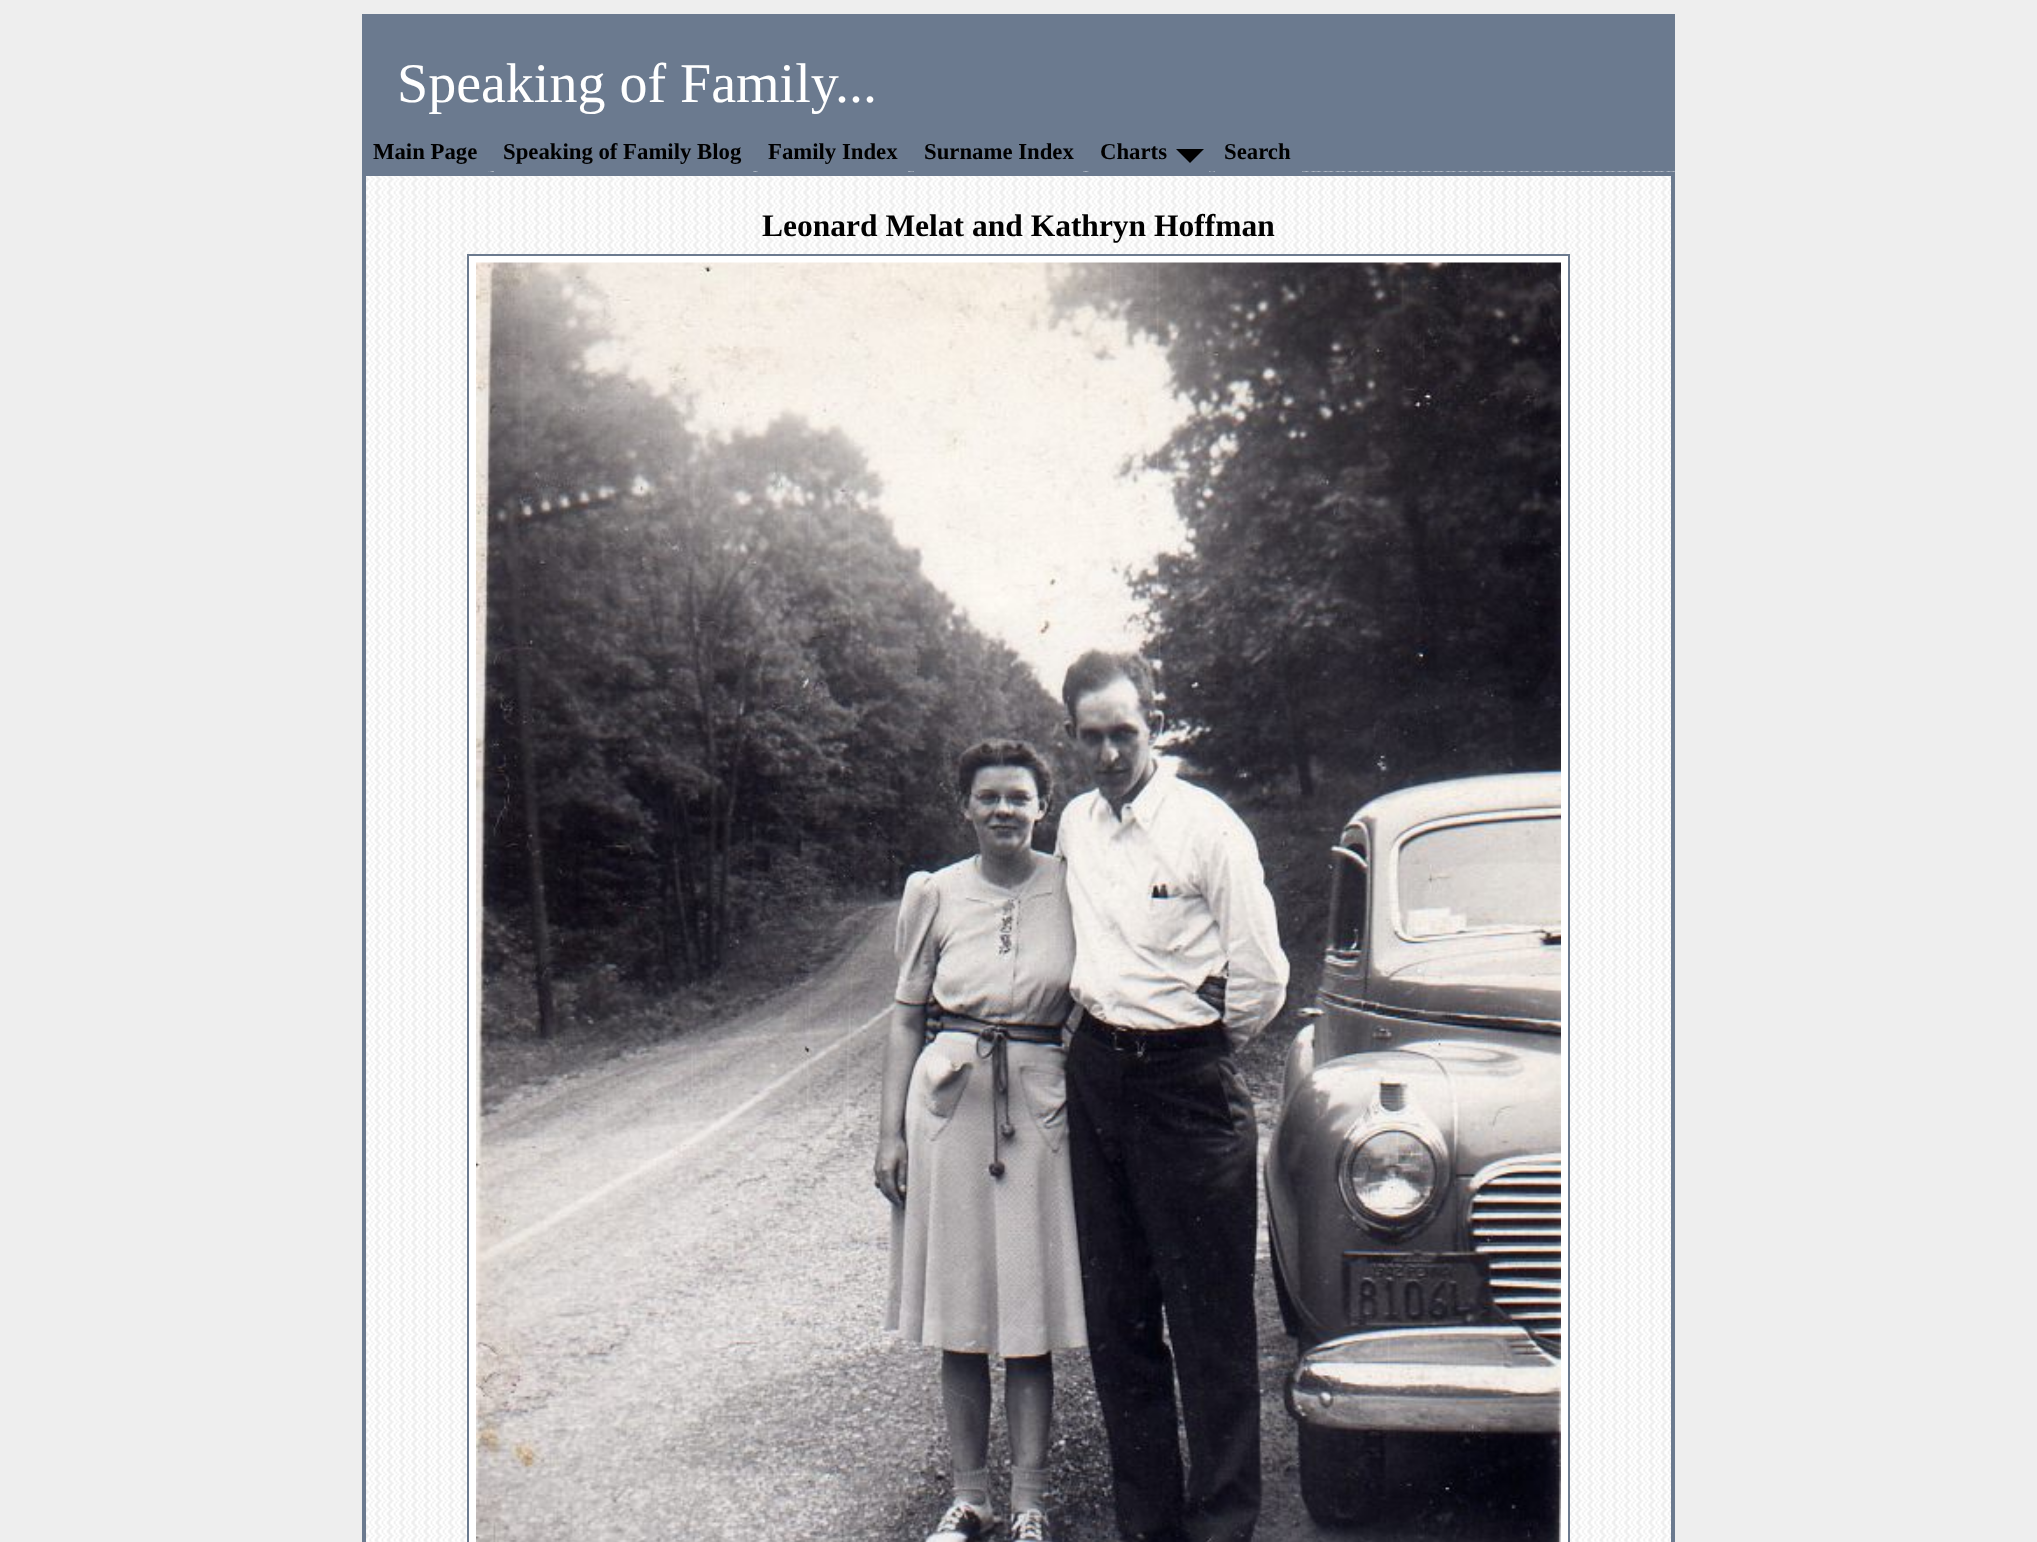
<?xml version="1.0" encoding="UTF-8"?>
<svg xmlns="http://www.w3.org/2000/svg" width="2037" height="1542">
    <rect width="100%" height="100%" fill="#EEEEEE"/>
    <rect x="362" y="14" width="1313" height="119" fill="#6B7A8F"/>
    <text x="397" y="102" font-family="Liberation Serif" font-size="56" fill="#FFFFFF">Speaking of Family...</text>
    <rect x="488" y="133" width="1187" height="39" fill="#6B7A8F"/>
    <image x="366" y="171" width="1309" height="1371" href="img_01.png"/>
    <rect x="362" y="133" width="126" height="39" fill="#6B7A8F"/>
    <text x="373" y="159" font-family="Liberation Serif" font-size="22.75" font-weight="700" fill="#000000">Main Page</text>
    <rect x="494" y="171" width="259" height="1" fill="#6B7A8F"/>
    <text x="503" y="159" font-family="Liberation Serif" font-size="22.75" font-weight="700" fill="#000000">Speaking of Family Blog</text>
    <rect x="758" y="171" width="150" height="1" fill="#6B7A8F"/>
    <text x="768" y="159" font-family="Liberation Serif" font-size="22.75" font-weight="700" fill="#000000">Family Index</text>
    <rect x="914" y="171" width="169" height="1" fill="#6B7A8F"/>
    <text x="924" y="159" font-family="Liberation Serif" font-size="22.75" font-weight="700" fill="#000000">Surname Index</text>
    <rect x="1090" y="171" width="119" height="1" fill="#6B7A8F"/>
    <text x="1100" y="159" font-family="Liberation Serif" font-size="22.75" font-weight="700" fill="#000000">Charts</text>
    <path d="M 1176 149 H 1204 L 1190 163 Z" fill="#000000"/>
    <rect x="1215" y="171" width="87" height="1" fill="#6B7A8F"/>
    <text x="1224" y="159" font-family="Liberation Serif" font-size="22.75" font-weight="700" fill="#000000">Search</text>
    <rect x="364" y="174" width="1309" height="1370" fill="none" stroke="#6B7A8F" stroke-width="4"/>
    <text x="762" y="236" font-family="Liberation Serif" font-size="31.5" font-weight="700" fill="#000000">Leonard Melat and Kathryn Hoffman</text>
    <rect x="468" y="255" width="1101" height="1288" fill="#FFFFFF" stroke="#6B7A8F" stroke-width="2"/>
    <image x="476" y="262" width="1085" height="1280" href="img_02.png"/>
</svg>
